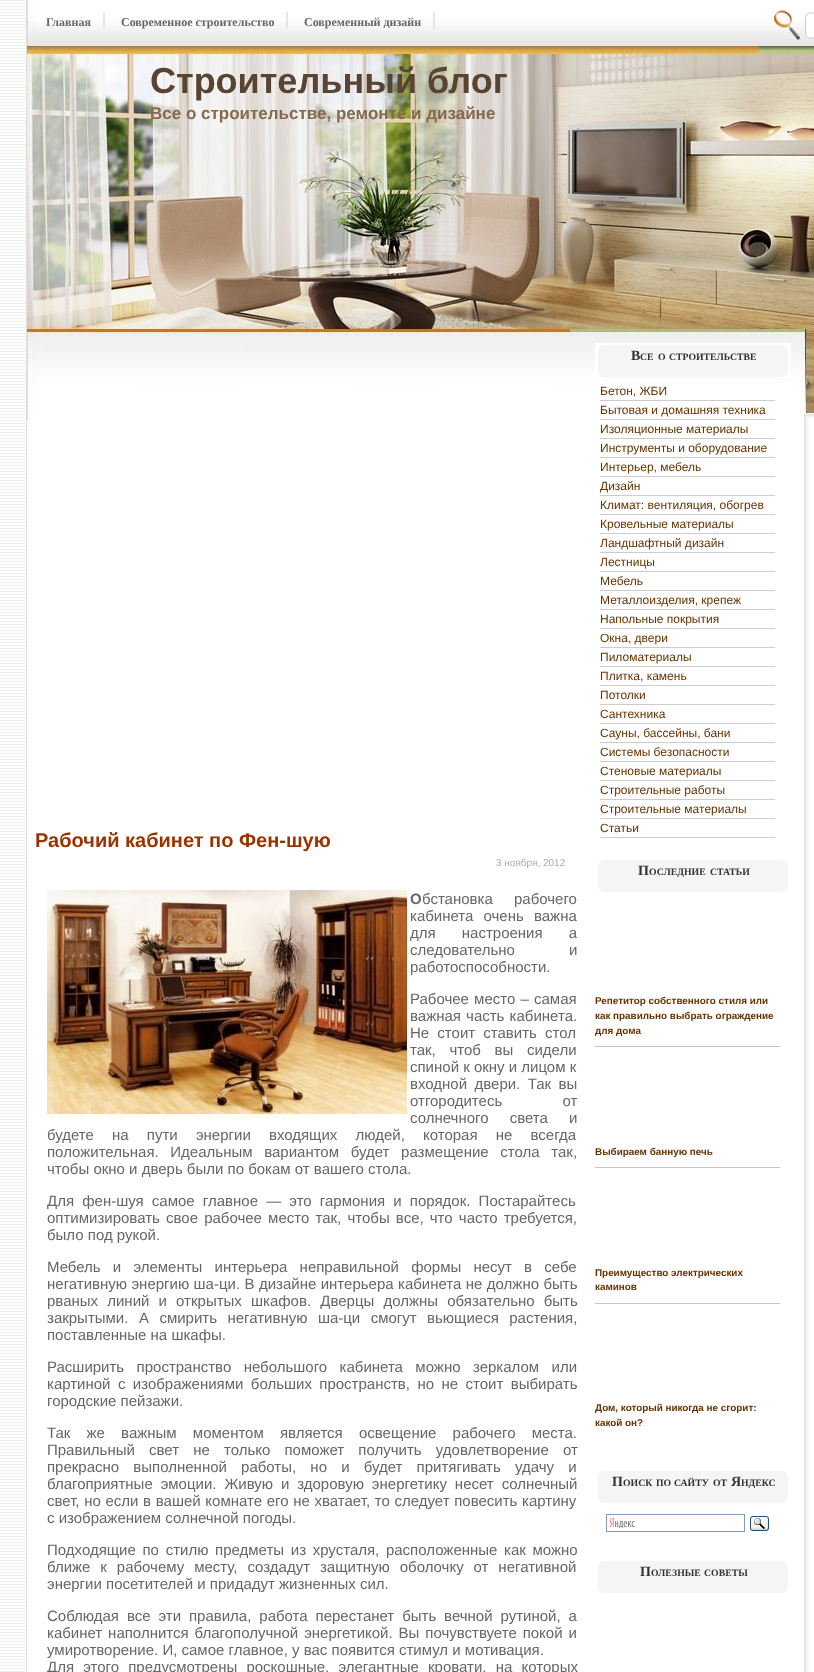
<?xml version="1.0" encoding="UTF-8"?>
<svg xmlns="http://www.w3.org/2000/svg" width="814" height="1672">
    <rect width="100%" height="100%" fill="#FFFFFF"/>
    <image x="0" y="0" width="814" height="1672" href="img_01.png"/>
    <image x="27" y="0" width="787" height="420" href="img_02.png"/>
    <rect x="103" y="12" width="2" height="17" fill="#E6E6E6"/>
    <text x="46" y="26" font-family="Liberation Serif" font-size="12" font-weight="700" fill="#666666">Главная</text>
    <rect x="286" y="12" width="2" height="17" fill="#E6E6E6"/>
    <text x="121" y="26" font-family="Liberation Serif" font-size="12" font-weight="700" fill="#666666">Современное строительство</text>
    <rect x="433" y="12" width="2" height="17" fill="#E6E6E6"/>
    <text x="304" y="26" font-family="Liberation Serif" font-size="12" font-weight="700" fill="#666666">Современный дизайн</text>
    <image x="774" y="10" width="40" height="30" href="img_03.png"/>
    <text x="150" y="93" font-family="Liberation Sans" font-size="36" font-weight="700" fill="#594332">Строительный блог</text>
    <text x="150" y="119" font-family="Liberation Sans" font-size="17" font-weight="700" fill="#87694F">Все о строительстве, ремонте и дизайне</text>
    <text x="35" y="847" font-family="Liberation Sans" font-size="20" font-weight="700" fill="#993300">Рабочий кабинет по Фен-шую</text>
    <text x="496" y="866" font-family="Liberation Sans" font-size="10" fill="#AAAAAA">3 ноября, 2012</text>
    <image x="47" y="890" width="360" height="224" href="img_04.png"/>
    <text x="410" y="904" font-family="Liberation Sans" font-size="15" font-weight="700" fill="#666666">О</text>
    <text x="422" y="904" word-spacing="17" font-family="Liberation Sans" font-size="15" fill="#666666">бстановка рабочего</text>
    <text font-family="Liberation Sans" font-size="15" fill="#666666">
        <tspan x="410" y="921" word-spacing="6">кабинета очень важна</tspan>
        <tspan x="410" y="938" word-spacing="22">для настроения а</tspan>
        <tspan x="410" y="955" word-spacing="50">следовательно и</tspan>
        <tspan x="410" y="972">работоспособности.</tspan>
    </text>
    <text font-family="Liberation Sans" font-size="15" fill="#666666">
        <tspan x="410" y="1004" word-spacing="1">Рабочее место – самая</tspan>
        <tspan x="410" y="1021" word-spacing="1">важная часть кабинета.</tspan>
        <tspan x="410" y="1038" word-spacing="4">Не стоит ставить стол</tspan>
        <tspan x="410" y="1055" word-spacing="9.5">так, чтоб вы сидели</tspan>
        <tspan x="410" y="1072">спиной к окну и лицом к</tspan>
        <tspan x="410" y="1089" word-spacing="3.25">входной двери. Так вы</tspan>
        <tspan x="410" y="1106" word-spacing="56">отгородитесь от</tspan>
        <tspan x="410" y="1123" word-spacing="17">солнечного света и</tspan>
    </text>
    <text font-family="Liberation Sans" font-size="15" fill="#666666">
        <tspan x="47" y="1140" word-spacing="14">будете на пути энергии входящих людей, которая не всегда</tspan>
        <tspan x="47" y="1157" word-spacing="7.5">положительная. Идеальным вариантом будет размещение стола так,</tspan>
        <tspan x="47" y="1174">чтобы окно и дверь были по бокам от вашего стола.</tspan>
    </text>
    <text font-family="Liberation Sans" font-size="15" fill="#666666">
        <tspan x="47" y="1206" word-spacing="4">Для фен-шуя самое главное — это гармония и порядок. Постарайтесь</tspan>
        <tspan x="47" y="1223" word-spacing="2">оптимизировать свое рабочее место так, чтобы все, что часто требуется,</tspan>
        <tspan x="47" y="1240">было под рукой.</tspan>
    </text>
    <text font-family="Liberation Sans" font-size="15" fill="#666666">
        <tspan x="47" y="1272" word-spacing="8">Мебель и элементы интерьера неправильной формы несут в себе</tspan>
        <tspan x="47" y="1289" word-spacing="0.25">негативную энергию ша-ци. В дизайне интерьера кабинета не должно быть</tspan>
        <tspan x="47" y="1306" word-spacing="5">рваных линий и открытых шкафов. Дверцы должны обязательно быть</tspan>
        <tspan x="47" y="1323">закрытыми.</tspan>
    </text>
    <text x="139" y="1323" word-spacing="6.25" font-family="Liberation Sans" font-size="15" fill="#666666">А смирить негативную ша-ци смогут вьющиеся растения,</text>
    <text x="47" y="1340" font-family="Liberation Sans" font-size="15" fill="#666666">поставленные на шкафы.</text>
    <text font-family="Liberation Sans" font-size="15" fill="#666666">
        <tspan x="47" y="1372" word-spacing="8.25">Расширить пространство небольшого кабинета можно зеркалом или</tspan>
        <tspan x="47" y="1389" word-spacing="3.25">картиной с изображениями больших пространств, но не стоит выбирать</tspan>
        <tspan x="47" y="1406">городские пейзажи.</tspan>
    </text>
    <text font-family="Liberation Sans" font-size="15" fill="#666666">
        <tspan x="47" y="1438" word-spacing="12">Так же важным моментом является освещение рабочего места.</tspan>
        <tspan x="47" y="1455" word-spacing="10">Правильный свет не только поможет получить удовлетворение от</tspan>
        <tspan x="47" y="1472" word-spacing="10">прекрасно выполненной работы, но и будет притягивать удачу и</tspan>
        <tspan x="47" y="1489" word-spacing="3.75">благоприятные эмоции. Живую и здоровую энергетику несет солнечный</tspan>
        <tspan x="47" y="1506" word-spacing="0.5">свет, но если в вашей комнате его не хватает, то следует повесить картину</tspan>
        <tspan x="47" y="1523">с изображением солнечной погоды.</tspan>
    </text>
    <text font-family="Liberation Sans" font-size="15" fill="#666666">
        <tspan x="47" y="1555" word-spacing="2.5">Подходящие по стилю предметы из хрусталя, расположенные как можно</tspan>
        <tspan x="47" y="1572" word-spacing="5.75">ближе к рабочему месту, создадут защитную оболочку от негативной</tspan>
        <tspan x="47" y="1589">энергии посетителей и придадут жизненных сил.</tspan>
    </text>
    <text font-family="Liberation Sans" font-size="15" fill="#666666">
        <tspan x="47" y="1621" word-spacing="3.75">Соблюдая все эти правила, работа перестанет быть вечной рутиной, а</tspan>
        <tspan x="47" y="1638" word-spacing="1.75">кабинет наполнится благополучной энергетикой. Вы почувствуете покой и</tspan>
        <tspan x="47" y="1655">умиротворение. И, самое главное, у вас появится стимул и мотивация.</tspan>
        <tspan x="47" y="1672" word-spacing="5">Для этого предусмотрены роскошные, элегантные кровати, на которых</tspan>
    </text>
    <image x="595" y="343" width="196" height="34" href="img_05.png"/>
    <text x="631" y="360" font-family="Liberation Serif" font-size="14" font-weight="700" fill="#333333">В</text>
    <text x="640" y="360" font-family="Liberation Serif" font-size="9.75" font-weight="700" fill="#333333">СЕ</text>
    <text x="658" y="360" font-family="Liberation Serif" font-size="9.75" font-weight="700" fill="#333333">О</text>
    <text x="669" y="360" font-family="Liberation Serif" font-size="9.75" font-weight="700" fill="#333333">СТРОИТЕЛЬСТВЕ</text>
    <rect x="600" y="400" width="175" height="1" fill="#CCCCCC"/>
    <text x="600" y="395" font-family="Liberation Sans" font-size="12" fill="#663300">Бетон, ЖБИ</text>
    <rect x="600" y="419" width="175" height="1" fill="#CCCCCC"/>
    <text x="600" y="414" font-family="Liberation Sans" font-size="12" fill="#663300">Бытовая и домашняя техника</text>
    <rect x="600" y="438" width="175" height="1" fill="#CCCCCC"/>
    <text x="600" y="433" font-family="Liberation Sans" font-size="12" fill="#663300">Изоляционные материалы</text>
    <rect x="600" y="457" width="175" height="1" fill="#CCCCCC"/>
    <text x="600" y="452" font-family="Liberation Sans" font-size="12" fill="#663300">Инструменты и оборудование</text>
    <rect x="600" y="476" width="175" height="1" fill="#CCCCCC"/>
    <text x="600" y="471" font-family="Liberation Sans" font-size="12" fill="#663300">Интерьер, мебель</text>
    <rect x="600" y="495" width="175" height="1" fill="#CCCCCC"/>
    <text x="600" y="490" font-family="Liberation Sans" font-size="12" fill="#663300">Дизайн</text>
    <rect x="600" y="514" width="175" height="1" fill="#CCCCCC"/>
    <text x="600" y="509" font-family="Liberation Sans" font-size="12" fill="#663300">Климат: вентиляция, обогрев</text>
    <rect x="600" y="533" width="175" height="1" fill="#CCCCCC"/>
    <text x="600" y="528" font-family="Liberation Sans" font-size="12" fill="#663300">Кровельные материалы</text>
    <rect x="600" y="552" width="175" height="1" fill="#CCCCCC"/>
    <text x="600" y="547" font-family="Liberation Sans" font-size="12" fill="#663300">Ландшафтный дизайн</text>
    <rect x="600" y="571" width="175" height="1" fill="#CCCCCC"/>
    <text x="600" y="566" font-family="Liberation Sans" font-size="12" fill="#663300">Лестницы</text>
    <rect x="600" y="590" width="175" height="1" fill="#CCCCCC"/>
    <text x="600" y="585" font-family="Liberation Sans" font-size="12" fill="#663300">Мебель</text>
    <rect x="600" y="609" width="175" height="1" fill="#CCCCCC"/>
    <text x="600" y="604" font-family="Liberation Sans" font-size="12" fill="#663300">Металлоизделия, крепеж</text>
    <rect x="600" y="628" width="175" height="1" fill="#CCCCCC"/>
    <text x="600" y="623" font-family="Liberation Sans" font-size="12" fill="#663300">Напольные покрытия</text>
    <rect x="600" y="647" width="175" height="1" fill="#CCCCCC"/>
    <text x="600" y="642" font-family="Liberation Sans" font-size="12" fill="#663300">Окна, двери</text>
    <rect x="600" y="666" width="175" height="1" fill="#CCCCCC"/>
    <text x="600" y="661" font-family="Liberation Sans" font-size="12" fill="#663300">Пиломатериалы</text>
    <rect x="600" y="685" width="175" height="1" fill="#CCCCCC"/>
    <text x="600" y="680" font-family="Liberation Sans" font-size="12" fill="#663300">Плитка, камень</text>
    <rect x="600" y="704" width="175" height="1" fill="#CCCCCC"/>
    <text x="600" y="699" font-family="Liberation Sans" font-size="12" fill="#663300">Потолки</text>
    <rect x="600" y="723" width="175" height="1" fill="#CCCCCC"/>
    <text x="600" y="718" font-family="Liberation Sans" font-size="12" fill="#663300">Сантехника</text>
    <rect x="600" y="742" width="175" height="1" fill="#CCCCCC"/>
    <text x="600" y="737" font-family="Liberation Sans" font-size="12" fill="#663300">Сауны, бассейны, бани</text>
    <rect x="600" y="761" width="175" height="1" fill="#CCCCCC"/>
    <text x="600" y="756" font-family="Liberation Sans" font-size="12" fill="#663300">Системы безопасности</text>
    <rect x="600" y="780" width="175" height="1" fill="#CCCCCC"/>
    <text x="600" y="775" font-family="Liberation Sans" font-size="12" fill="#663300">Стеновые материалы</text>
    <rect x="600" y="799" width="175" height="1" fill="#CCCCCC"/>
    <text x="600" y="794" font-family="Liberation Sans" font-size="12" fill="#663300">Строительные работы</text>
    <rect x="600" y="818" width="175" height="1" fill="#CCCCCC"/>
    <text x="600" y="813" font-family="Liberation Sans" font-size="12" fill="#663300">Строительные материалы</text>
    <rect x="600" y="837" width="175" height="1" fill="#CCCCCC"/>
    <text x="600" y="832" font-family="Liberation Sans" font-size="12" fill="#663300">Статьи</text>
    <image x="598" y="860" width="190" height="32" href="img_06.png"/>
    <text x="638" y="875" font-family="Liberation Serif" font-size="14" font-weight="700" fill="#333333">П</text>
    <text x="649" y="875" font-family="Liberation Serif" font-size="9.75" font-weight="700" fill="#333333">ОСЛЕДНИЕ</text>
    <text x="710" y="875" font-family="Liberation Serif" font-size="9.75" font-weight="700" fill="#333333">СТАТЬИ</text>
    <rect x="595" y="1046" width="185" height="1" fill="#C6C5C5"/>
    <text font-family="Liberation Sans" font-size="9.9" font-weight="700" fill="#663300">
        <tspan x="595" y="1004">Репетитор собственного стиля или</tspan>
        <tspan x="595" y="1019">как правильно выбрать ограждение</tspan>
        <tspan x="595" y="1034">для дома</tspan>
    </text>
    <rect x="595" y="1167" width="185" height="1" fill="#C6C5C5"/>
    <text x="595" y="1155" font-family="Liberation Sans" font-size="9.9" font-weight="700" fill="#663300">Выбираем банную печь</text>
    <rect x="595" y="1303" width="185" height="1" fill="#C6C5C5"/>
    <text font-family="Liberation Sans" font-size="9.9" font-weight="700" fill="#663300">
        <tspan x="595" y="1276">Преимущество электрических</tspan>
        <tspan x="595" y="1290">каминов</tspan>
    </text>
    <text font-family="Liberation Sans" font-size="9.9" font-weight="700" fill="#663300">
        <tspan x="595" y="1411">Дом, который никогда не сгорит:</tspan>
        <tspan x="595" y="1426">какой он?</tspan>
    </text>
    <image x="598" y="1471" width="190" height="32" href="img_06.png"/>
    <text x="612" y="1486" font-family="Liberation Serif" font-size="14" font-weight="700" fill="#333333">П</text>
    <text x="623" y="1486" font-family="Liberation Serif" font-size="9.75" font-weight="700" fill="#333333">ОИСК</text>
    <text x="656" y="1486" font-family="Liberation Serif" font-size="9.75" font-weight="700" fill="#333333">ПО</text>
    <text x="674" y="1486" font-family="Liberation Serif" font-size="9.75" font-weight="700" fill="#333333">САЙТУ</text>
    <text x="713" y="1486" font-family="Liberation Serif" font-size="9.75" font-weight="700" fill="#333333">ОТ</text>
    <text x="731" y="1486" font-family="Liberation Serif" font-size="14" font-weight="700" fill="#333333">Я</text>
    <text x="741" y="1486" font-family="Liberation Serif" font-size="9.75" font-weight="700" fill="#333333">НДЕКС</text>
    <image x="609" y="1518" width="26" height="11" href="img_07.png"/>
    <rect x="606.5" y="1514.5" width="138" height="17" fill="none" stroke="#7F9DB9"/>
    <image x="750" y="1516" width="19" height="15" href="img_08.png"/>
    <image x="598" y="1561" width="190" height="32" href="img_06.png"/>
    <text x="640" y="1576" font-family="Liberation Serif" font-size="14" font-weight="700" fill="#333333">П</text>
    <text x="651" y="1576" font-family="Liberation Serif" font-size="9.75" font-weight="700" fill="#333333">ОЛЕЗНЫЕ</text>
    <text x="704" y="1576" font-family="Liberation Serif" font-size="9.75" font-weight="700" fill="#333333">СОВЕТЫ</text>
</svg>
